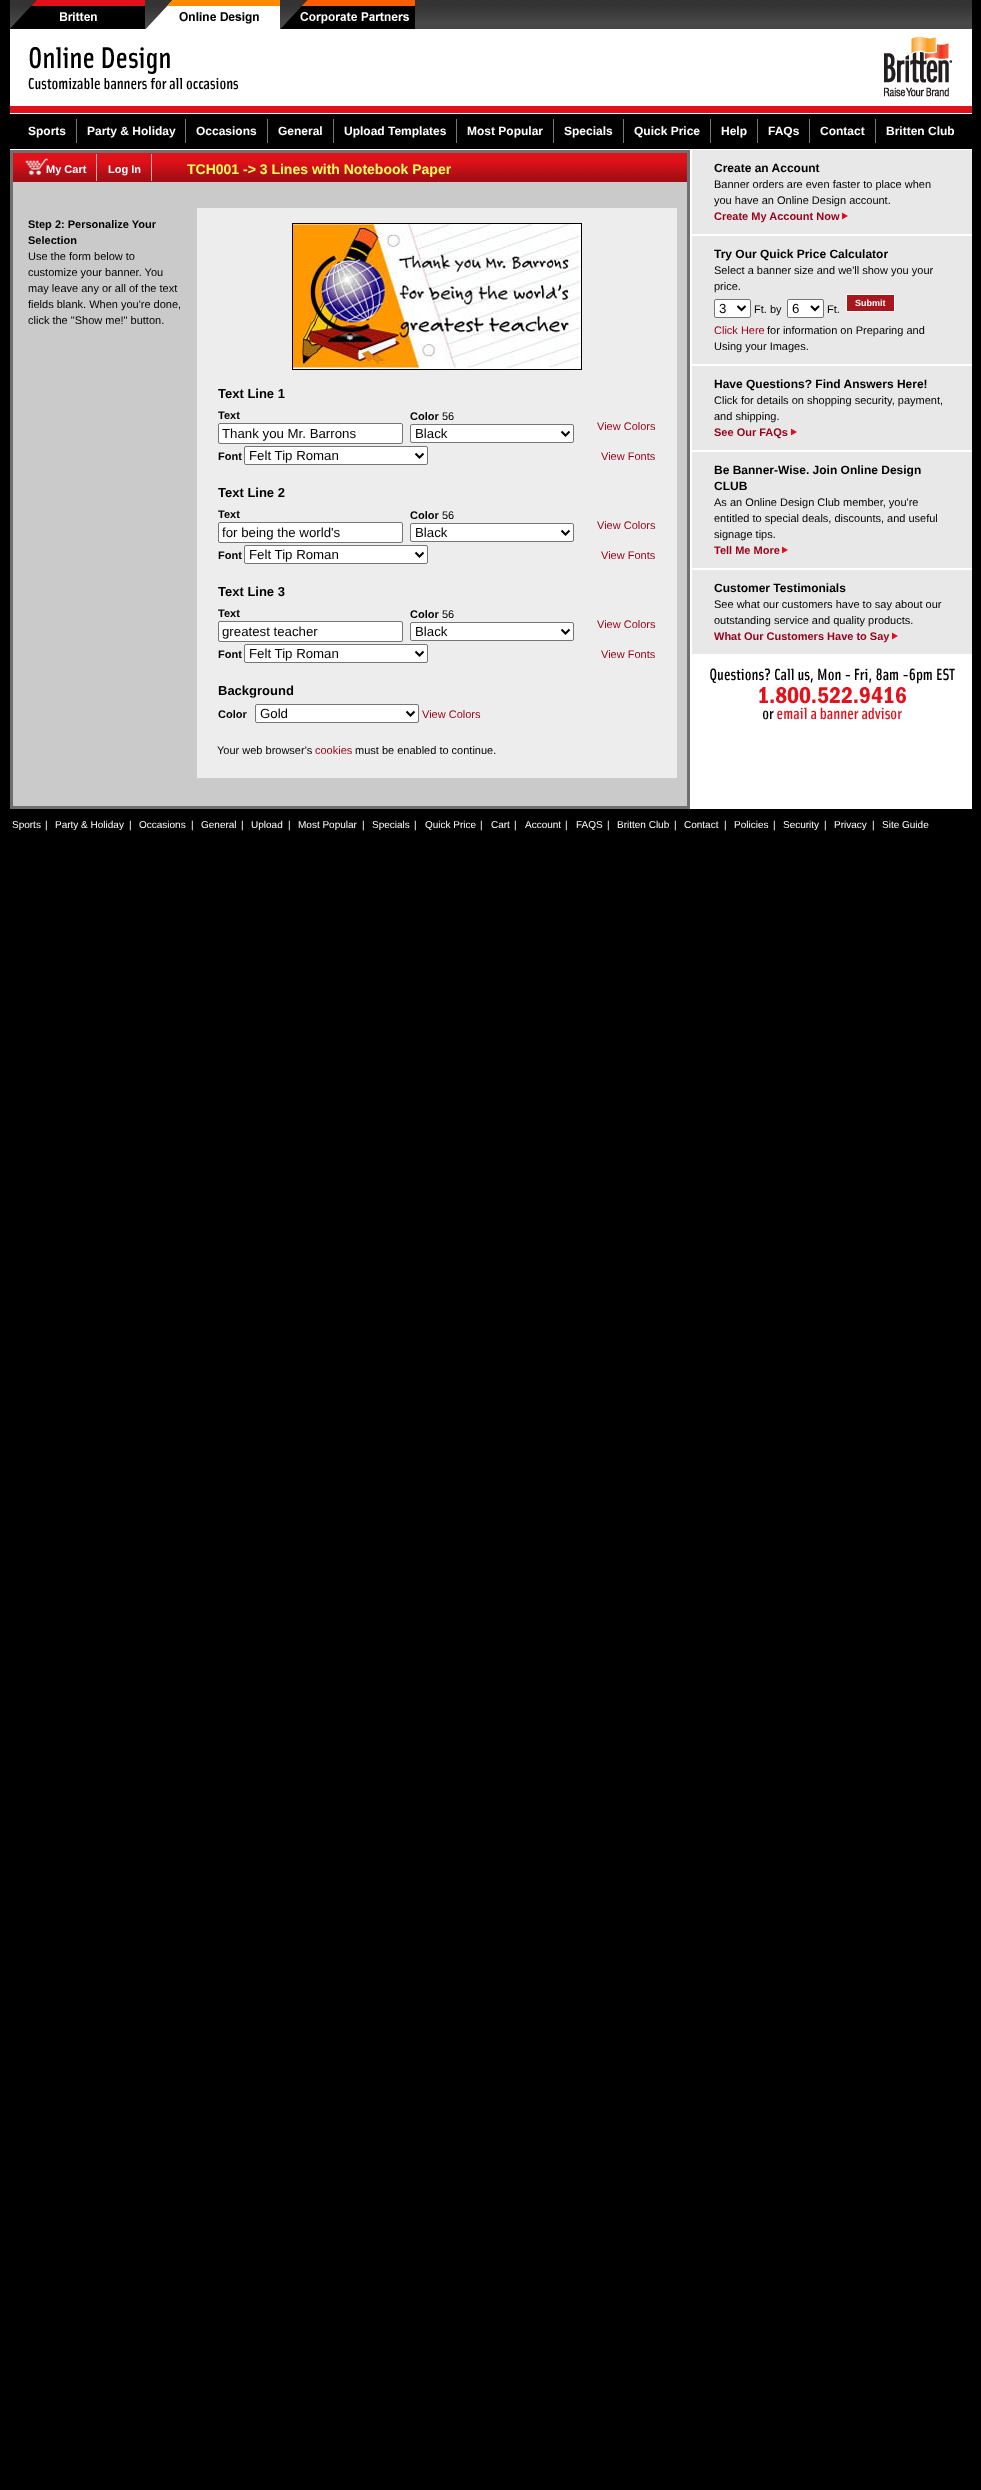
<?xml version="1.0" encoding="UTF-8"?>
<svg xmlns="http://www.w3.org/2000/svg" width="981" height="2490">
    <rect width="100%" height="100%" fill="#000000"/>
    <rect x="415" y="21" width="557" height="8" fill="#494849"/>
    <image x="415" y="0" width="557" height="21" href="img_01.png"/>
    <image x="10" y="0" width="135" height="29" href="img_02.png"/>
    <image x="145" y="0" width="135" height="29" href="img_03.png"/>
    <image x="280" y="0" width="135" height="29" href="img_04.png"/>
    <rect x="10" y="29" width="962" height="77" fill="#FFFFFF"/>
    <rect x="10" y="106" width="962" height="7" fill="#E1111A"/>
    <image x="28" y="47" width="210" height="43" href="img_05.png"/>
    <image x="884" y="36" width="68" height="61" href="img_06.png"/>
    <rect x="10" y="113" width="962" height="1" fill="#FFFFFF"/>
    <rect x="10" y="149" width="962" height="1" fill="#FFFFFF"/>
    <text x="28" y="135" font-family="Liberation Sans" font-size="12" font-weight="700" fill="#FFFFFF">Sports</text>
    <rect x="76" y="119" width="1" height="24" fill="#767676"/>
    <text x="87" y="135" font-family="Liberation Sans" font-size="12" font-weight="700" fill="#FFFFFF">Party &amp; Holiday</text>
    <rect x="185" y="119" width="1" height="24" fill="#767676"/>
    <text x="196" y="135" font-family="Liberation Sans" font-size="12" font-weight="700" fill="#FFFFFF">Occasions</text>
    <rect x="267" y="119" width="1" height="24" fill="#767676"/>
    <text x="278" y="135" font-family="Liberation Sans" font-size="12" font-weight="700" fill="#FFFFFF">General</text>
    <rect x="333" y="119" width="1" height="24" fill="#767676"/>
    <text x="344" y="135" font-family="Liberation Sans" font-size="12" font-weight="700" fill="#FFFFFF">Upload Templates</text>
    <rect x="456" y="119" width="1" height="24" fill="#767676"/>
    <text x="467" y="135" font-family="Liberation Sans" font-size="12" font-weight="700" fill="#FFFFFF">Most Popular</text>
    <rect x="553" y="119" width="1" height="24" fill="#767676"/>
    <text x="564" y="135" font-family="Liberation Sans" font-size="12" font-weight="700" fill="#FFFFFF">Specials</text>
    <rect x="623" y="119" width="1" height="24" fill="#767676"/>
    <text x="634" y="135" font-family="Liberation Sans" font-size="12" font-weight="700" fill="#FFFFFF">Quick Price</text>
    <rect x="710" y="119" width="1" height="24" fill="#767676"/>
    <text x="721" y="135" font-family="Liberation Sans" font-size="12" font-weight="700" fill="#FFFFFF">Help</text>
    <rect x="757" y="119" width="1" height="24" fill="#767676"/>
    <text x="768" y="135" font-family="Liberation Sans" font-size="12" font-weight="700" fill="#FFFFFF">FAQs</text>
    <rect x="809" y="119" width="1" height="24" fill="#767676"/>
    <text x="820" y="135" font-family="Liberation Sans" font-size="12" font-weight="700" fill="#FFFFFF">Contact</text>
    <rect x="875" y="119" width="1" height="24" fill="#767676"/>
    <text x="886" y="135" font-family="Liberation Sans" font-size="12" font-weight="700" fill="#FFFFFF">Britten Club</text>
    <rect x="690" y="150" width="282" height="659" fill="#FFFFFF"/>
    <rect x="13" y="182" width="674" height="624" fill="#CACACA"/>
    <rect x="11.5" y="151.5" width="677" height="656" fill="none" stroke="#6F6F6F" stroke-width="3"/>
    <rect x="13" y="153" width="674" height="9" fill="#E1111A"/>
    <image x="13" y="162" width="674" height="20" href="img_07.png"/>
    <image x="25" y="158" width="23" height="17" href="img_08.png"/>
    <rect x="96" y="154" width="1" height="27" fill="#E9AAAD"/>
    <text x="46" y="173" font-family="Liberation Sans" font-size="11" font-weight="700" fill="#FFFFFF">My Cart</text>
    <rect x="151" y="154" width="1" height="27" fill="#E9AAAD"/>
    <text x="108" y="173" font-family="Liberation Sans" font-size="11" font-weight="700" fill="#FFFFFF">Log In</text>
    <text x="187" y="174" font-family="Liberation Sans" font-size="14" font-weight="700" fill="#FDFF5D">TCH001 -&gt; 3 Lines with Notebook Paper</text>
    <text font-family="Liberation Sans" font-size="11" font-weight="700" fill="#000000">
        <tspan x="28" y="228">Step 2: Personalize Your</tspan>
        <tspan x="28" y="244">Selection</tspan>
    </text>
    <text font-family="Liberation Sans" font-size="11" fill="#000000">
        <tspan x="28" y="260">Use the form below to</tspan>
        <tspan x="28" y="276">customize your banner. You</tspan>
        <tspan x="28" y="292">may leave any or all of the text</tspan>
        <tspan x="28" y="308">fields blank. When you're done,</tspan>
        <tspan x="28" y="324">click the "Show me!" button.</tspan>
    </text>
    <rect x="197" y="208" width="480" height="570" fill="#EDEDED"/>
    <rect x="292.5" y="223.5" width="289" height="146" fill="none" stroke="#000000"/>
    <image x="293" y="224" width="288" height="145" href="img_09.png"/>
    <text x="218" y="398" font-family="Liberation Sans" font-size="13" font-weight="700" fill="#000000">Text Line 1</text>
    <text x="218" y="419" font-family="Liberation Sans" font-size="11" font-weight="700" fill="#000000">Text</text>
    <rect x="218.5" y="423.5" width="184" height="20" rx="1.5" fill="#FFFFFF" stroke="#767676"/>
    <text x="222" y="438" font-family="Liberation Sans" font-size="13.25" fill="#000000">Thank you Mr. Barrons</text>
    <text x="410" y="420" font-family="Liberation Sans" font-size="11" font-weight="700" fill="#000000">Color</text>
    <text x="442" y="420" font-family="Liberation Sans" font-size="11" fill="#000000">56</text>
    <rect x="410.5" y="424.5" width="163" height="18" rx="1.5" fill="#FFFFFF" stroke="#767676"/>
    <path d="M 561.5 431.5 L 565.5 435.5 L 569.5 431.5" fill="none" stroke="#000000" stroke-width="2"/>
    <text x="415" y="438" font-family="Liberation Sans" font-size="13.25" fill="#000000">Black</text>
    <text x="597" y="430" font-family="Liberation Sans" font-size="11" fill="#960019">View Colors</text>
    <text x="218" y="460" font-family="Liberation Sans" font-size="11" font-weight="700" fill="#000000">Font</text>
    <rect x="244.5" y="446.5" width="183" height="18" rx="1.5" fill="#FFFFFF" stroke="#767676"/>
    <path d="M 415.5 453.5 L 419.5 457.5 L 423.5 453.5" fill="none" stroke="#000000" stroke-width="2"/>
    <text x="249" y="460" font-family="Liberation Sans" font-size="13.25" fill="#000000">Felt Tip Roman</text>
    <text x="601" y="460" font-family="Liberation Sans" font-size="11" fill="#960019">View Fonts</text>
    <text x="218" y="497" font-family="Liberation Sans" font-size="13" font-weight="700" fill="#000000">Text Line 2</text>
    <text x="218" y="518" font-family="Liberation Sans" font-size="11" font-weight="700" fill="#000000">Text</text>
    <rect x="218.5" y="522.5" width="184" height="20" rx="1.5" fill="#FFFFFF" stroke="#767676"/>
    <text x="222" y="537" font-family="Liberation Sans" font-size="13.25" fill="#000000">for being the world's</text>
    <text x="410" y="519" font-family="Liberation Sans" font-size="11" font-weight="700" fill="#000000">Color</text>
    <text x="442" y="519" font-family="Liberation Sans" font-size="11" fill="#000000">56</text>
    <rect x="410.5" y="523.5" width="163" height="18" rx="1.5" fill="#FFFFFF" stroke="#767676"/>
    <path d="M 561.5 530.5 L 565.5 534.5 L 569.5 530.5" fill="none" stroke="#000000" stroke-width="2"/>
    <text x="415" y="537" font-family="Liberation Sans" font-size="13.25" fill="#000000">Black</text>
    <text x="597" y="529" font-family="Liberation Sans" font-size="11" fill="#960019">View Colors</text>
    <text x="218" y="559" font-family="Liberation Sans" font-size="11" font-weight="700" fill="#000000">Font</text>
    <rect x="244.5" y="545.5" width="183" height="18" rx="1.5" fill="#FFFFFF" stroke="#767676"/>
    <path d="M 415.5 552.5 L 419.5 556.5 L 423.5 552.5" fill="none" stroke="#000000" stroke-width="2"/>
    <text x="249" y="559" font-family="Liberation Sans" font-size="13.25" fill="#000000">Felt Tip Roman</text>
    <text x="601" y="559" font-family="Liberation Sans" font-size="11" fill="#960019">View Fonts</text>
    <text x="218" y="596" font-family="Liberation Sans" font-size="13" font-weight="700" fill="#000000">Text Line 3</text>
    <text x="218" y="617" font-family="Liberation Sans" font-size="11" font-weight="700" fill="#000000">Text</text>
    <rect x="218.5" y="621.5" width="184" height="20" rx="1.5" fill="#FFFFFF" stroke="#767676"/>
    <text x="222" y="636" font-family="Liberation Sans" font-size="13.25" fill="#000000">greatest teacher</text>
    <text x="410" y="618" font-family="Liberation Sans" font-size="11" font-weight="700" fill="#000000">Color</text>
    <text x="442" y="618" font-family="Liberation Sans" font-size="11" fill="#000000">56</text>
    <rect x="410.5" y="622.5" width="163" height="18" rx="1.5" fill="#FFFFFF" stroke="#767676"/>
    <path d="M 561.5 629.5 L 565.5 633.5 L 569.5 629.5" fill="none" stroke="#000000" stroke-width="2"/>
    <text x="415" y="636" font-family="Liberation Sans" font-size="13.25" fill="#000000">Black</text>
    <text x="597" y="628" font-family="Liberation Sans" font-size="11" fill="#960019">View Colors</text>
    <text x="218" y="658" font-family="Liberation Sans" font-size="11" font-weight="700" fill="#000000">Font</text>
    <rect x="244.5" y="644.5" width="183" height="18" rx="1.5" fill="#FFFFFF" stroke="#767676"/>
    <path d="M 415.5 651.5 L 419.5 655.5 L 423.5 651.5" fill="none" stroke="#000000" stroke-width="2"/>
    <text x="249" y="658" font-family="Liberation Sans" font-size="13.25" fill="#000000">Felt Tip Roman</text>
    <text x="601" y="658" font-family="Liberation Sans" font-size="11" fill="#960019">View Fonts</text>
    <text x="218" y="695" font-family="Liberation Sans" font-size="13" font-weight="700" fill="#000000">Background</text>
    <text x="218" y="718" font-family="Liberation Sans" font-size="11" font-weight="700" fill="#000000">Color</text>
    <rect x="255.5" y="704.5" width="163" height="18" rx="1.5" fill="#FFFFFF" stroke="#767676"/>
    <path d="M 406.5 711.5 L 410.5 715.5 L 414.5 711.5" fill="none" stroke="#000000" stroke-width="2"/>
    <text x="260" y="718" font-family="Liberation Sans" font-size="13.25" fill="#000000">Gold</text>
    <text x="422" y="718" font-family="Liberation Sans" font-size="11" fill="#960019">View Colors</text>
    <text x="217" y="754" font-family="Liberation Sans" font-size="11" fill="#000000">Your web browser's</text>
    <text x="315" y="754" font-family="Liberation Sans" font-size="11" fill="#960019">cookies</text>
    <text x="355" y="754" font-family="Liberation Sans" font-size="11" fill="#000000">must be enabled to continue.</text>
    <rect x="692" y="150" width="280" height="84" fill="#E8E8E8"/>
    <text x="714" y="172" font-family="Liberation Sans" font-size="12" font-weight="700" fill="#000000">Create an Account</text>
    <text font-family="Liberation Sans" font-size="11" fill="#000000">
        <tspan x="714" y="188">Banner orders are even faster to place when</tspan>
        <tspan x="714" y="204">you have an Online Design account.</tspan>
    </text>
    <text x="714" y="220" font-family="Liberation Sans" font-size="11" font-weight="700" fill="#960019">Create My Account Now</text>
    <image x="842" y="212" width="6" height="8" href="img_10.png"/>
    <rect x="692" y="236" width="280" height="128" fill="#E8E8E8"/>
    <text x="714" y="258" font-family="Liberation Sans" font-size="12" font-weight="700" fill="#000000">Try Our Quick Price Calculator</text>
    <text font-family="Liberation Sans" font-size="11" fill="#000000">
        <tspan x="714" y="274">Select a banner size and we'll show you your</tspan>
        <tspan x="714" y="290">price.</tspan>
    </text>
    <rect x="714.5" y="299.5" width="36" height="18" rx="1.5" fill="#FFFFFF" stroke="#767676"/>
    <path d="M 737.5 306 L 741.5 310 L 745.5 306" fill="none" stroke="#000000" stroke-width="2"/>
    <text x="719" y="313" font-family="Liberation Sans" font-size="13.25" fill="#000000">3</text>
    <text x="754" y="313" font-family="Liberation Sans" font-size="11" fill="#000000">Ft. by</text>
    <rect x="787.5" y="299.5" width="36" height="18" rx="1.5" fill="#FFFFFF" stroke="#767676"/>
    <path d="M 811 306 L 815 310 L 819 306" fill="none" stroke="#000000" stroke-width="2"/>
    <text x="792" y="313" font-family="Liberation Sans" font-size="13.25" fill="#000000">6</text>
    <text x="827" y="313" font-family="Liberation Sans" font-size="11" fill="#000000">Ft.</text>
    <rect x="846.5" y="294.5" width="48" height="17" fill="#A8171D" stroke="#FFFFFF"/>
    <text x="855" y="306" font-family="Liberation Sans" font-size="9" font-weight="700" fill="#FFFFFF">Submit</text>
    <text x="714" y="334" font-family="Liberation Sans" font-size="11" fill="#960019">Click Here</text>
    <text x="767" y="334" font-family="Liberation Sans" font-size="11" fill="#000000">for information on Preparing and</text>
    <text x="714" y="350" font-family="Liberation Sans" font-size="11" fill="#000000">Using your Images.</text>
    <rect x="692" y="366" width="280" height="84" fill="#E8E8E8"/>
    <text x="714" y="388" font-family="Liberation Sans" font-size="12" font-weight="700" fill="#000000">Have Questions? Find Answers Here!</text>
    <text font-family="Liberation Sans" font-size="11" fill="#000000">
        <tspan x="714" y="404">Click for details on shopping security, payment,</tspan>
        <tspan x="714" y="420">and shipping.</tspan>
    </text>
    <text x="714" y="436" font-family="Liberation Sans" font-size="11" font-weight="700" fill="#960019">See Our FAQs</text>
    <image x="791" y="428" width="6" height="8" href="img_10.png"/>
    <rect x="692" y="452" width="280" height="116" fill="#E8E8E8"/>
    <text font-family="Liberation Sans" font-size="12" font-weight="700" fill="#000000">
        <tspan x="714" y="474">Be Banner-Wise. Join Online Design</tspan>
        <tspan x="714" y="490">CLUB</tspan>
    </text>
    <text font-family="Liberation Sans" font-size="11" fill="#000000">
        <tspan x="714" y="506">As an Online Design Club member, you're</tspan>
        <tspan x="714" y="522">entitled to special deals, discounts, and useful</tspan>
        <tspan x="714" y="538">signage tips.</tspan>
    </text>
    <text x="714" y="554" font-family="Liberation Sans" font-size="11" font-weight="700" fill="#960019">Tell Me More</text>
    <image x="782" y="546" width="6" height="8" href="img_10.png"/>
    <rect x="692" y="570" width="280" height="84" fill="#E8E8E8"/>
    <text x="714" y="592" font-family="Liberation Sans" font-size="12" font-weight="700" fill="#000000">Customer Testimonials</text>
    <text font-family="Liberation Sans" font-size="11" fill="#000000">
        <tspan x="714" y="608">See what our customers have to say about our</tspan>
        <tspan x="714" y="624">outstanding service and quality products.</tspan>
    </text>
    <text x="714" y="640" font-family="Liberation Sans" font-size="11" font-weight="700" fill="#960019">What Our Customers Have to Say</text>
    <image x="892" y="632" width="6" height="8" href="img_10.png"/>
    <image x="710" y="668" width="245" height="52" href="img_11.png"/>
    <text x="12" y="828" font-family="Liberation Sans" font-size="10" fill="#FFFFFF">Sports</text>
    <text x="45" y="828" font-family="Liberation Sans" font-size="10" fill="#FFFFFF">|</text>
    <text x="55" y="828" font-family="Liberation Sans" font-size="10" fill="#FFFFFF">Party &amp; Holiday</text>
    <text x="129" y="828" font-family="Liberation Sans" font-size="10" fill="#FFFFFF">|</text>
    <text x="139" y="828" font-family="Liberation Sans" font-size="10" fill="#FFFFFF">Occasions</text>
    <text x="191" y="828" font-family="Liberation Sans" font-size="10" fill="#FFFFFF">|</text>
    <text x="201" y="828" font-family="Liberation Sans" font-size="10" fill="#FFFFFF">General</text>
    <text x="241" y="828" font-family="Liberation Sans" font-size="10" fill="#FFFFFF">|</text>
    <text x="251" y="828" font-family="Liberation Sans" font-size="10" fill="#FFFFFF">Upload</text>
    <text x="288" y="828" font-family="Liberation Sans" font-size="10" fill="#FFFFFF">|</text>
    <text x="298" y="828" font-family="Liberation Sans" font-size="10" fill="#FFFFFF">Most Popular</text>
    <text x="362" y="828" font-family="Liberation Sans" font-size="10" fill="#FFFFFF">|</text>
    <text x="372" y="828" font-family="Liberation Sans" font-size="10" fill="#FFFFFF">Specials</text>
    <text x="414" y="828" font-family="Liberation Sans" font-size="10" fill="#FFFFFF">|</text>
    <text x="425" y="828" font-family="Liberation Sans" font-size="10" fill="#FFFFFF">Quick Price</text>
    <text x="480" y="828" font-family="Liberation Sans" font-size="10" fill="#FFFFFF">|</text>
    <text x="491" y="828" font-family="Liberation Sans" font-size="10" fill="#FFFFFF">Cart</text>
    <text x="514" y="828" font-family="Liberation Sans" font-size="10" fill="#FFFFFF">|</text>
    <text x="525" y="828" font-family="Liberation Sans" font-size="10" fill="#FFFFFF">Account</text>
    <text x="565" y="828" font-family="Liberation Sans" font-size="10" fill="#FFFFFF">|</text>
    <text x="576" y="828" font-family="Liberation Sans" font-size="10" fill="#FFFFFF">FAQS</text>
    <text x="607" y="828" font-family="Liberation Sans" font-size="10" fill="#FFFFFF">|</text>
    <text x="617" y="828" font-family="Liberation Sans" font-size="10" fill="#FFFFFF">Britten Club</text>
    <text x="674" y="828" font-family="Liberation Sans" font-size="10" fill="#FFFFFF">|</text>
    <text x="684" y="828" font-family="Liberation Sans" font-size="10" fill="#FFFFFF">Contact</text>
    <text x="724" y="828" font-family="Liberation Sans" font-size="10" fill="#FFFFFF">|</text>
    <text x="734" y="828" font-family="Liberation Sans" font-size="10" fill="#FFFFFF">Policies</text>
    <text x="773" y="828" font-family="Liberation Sans" font-size="10" fill="#FFFFFF">|</text>
    <text x="783" y="828" font-family="Liberation Sans" font-size="10" fill="#FFFFFF">Security</text>
    <text x="824" y="828" font-family="Liberation Sans" font-size="10" fill="#FFFFFF">|</text>
    <text x="834" y="828" font-family="Liberation Sans" font-size="10" fill="#FFFFFF">Privacy</text>
    <text x="872" y="828" font-family="Liberation Sans" font-size="10" fill="#FFFFFF">|</text>
    <text x="882" y="828" font-family="Liberation Sans" font-size="10" fill="#FFFFFF">Site Guide</text>
</svg>
